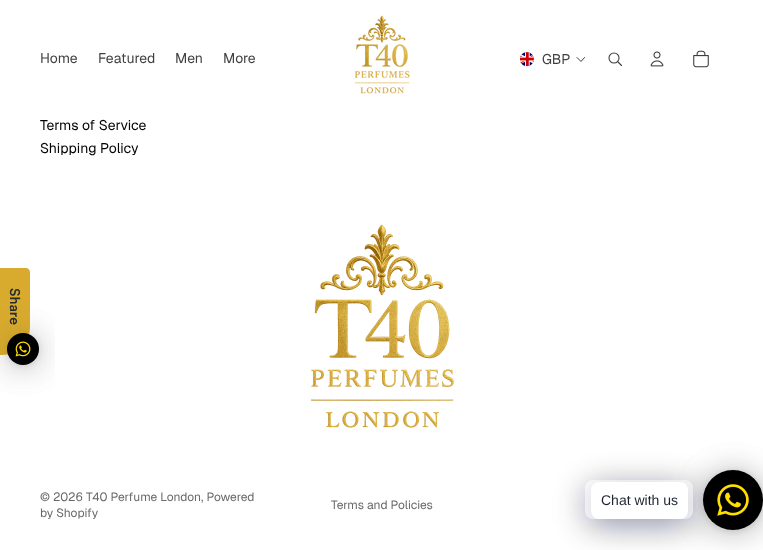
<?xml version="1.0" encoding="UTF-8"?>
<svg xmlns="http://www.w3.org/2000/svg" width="763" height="550">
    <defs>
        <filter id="blur1" x="-50%" y="-200%" width="200%" height="500%"><feGaussianBlur stdDeviation="16"/></filter>
        <filter id="blur2" x="-50%" y="-200%" width="200%" height="500%"><feGaussianBlur stdDeviation="3"/></filter>
    </defs>
    <rect width="100%" height="100%" fill="#FFFFFF"/>
    <text x="40" y="63" font-family="Geist" font-size="14" fill="#3F3F3F">Home</text>
    <text x="98" y="63" font-family="Geist" font-size="14" fill="#3F3F3F">Featured</text>
    <text x="175" y="63" font-family="Geist" font-size="14" fill="#3F3F3F">Men</text>
    <text x="223" y="63" font-family="Geist" font-size="14" fill="#3F3F3F">More</text>
    <image x="354" y="15" width="56" height="79" href="img_01.png"/>
    <image x="520" y="52" width="14" height="14" href="img_02.png"/>
    <text x="542" y="64" font-family="Geist" font-size="14" fill="#3F3F3F">GBP</text>
    <path d="M 584.5 57.5 L 581 61.5 L 577 57.5" fill="none" stroke="#3F3F3F" stroke-linecap="round" stroke-linejoin="round"/>
    <circle cx="614" cy="58" r="5" fill="none" stroke="#3F3F3F" stroke-width="1.1"/>
    <path d="M 618 62 L 621.5 65.5" fill="none" stroke="#3F3F3F" stroke-width="1.1" stroke-linecap="round" stroke-linejoin="round"/>
    <image x="650" y="51" width="14" height="16" href="img_03.png"/>
    <image x="693" y="50" width="16" height="18" href="img_04.png"/>
    <text font-family="Geist" font-size="14" fill="#030302">
        <tspan x="40" y="130">Terms of Service</tspan>
        <tspan x="40" y="153">Shipping Policy</tspan>
    </text>
    <rect x="7" y="335" width="32" height="32" rx="16" fill="#000000" fill-opacity="0.16" filter="url(#blur1)"/>
    <rect x="7" y="334" width="32" height="32" rx="16" fill="#000000" fill-opacity="0.06" filter="url(#blur2)"/>
    <image x="311" y="224" width="143" height="204" href="img_05.png"/>
    <path d="M 0 355 V 268 H 26 C 28 268 30 270 30 272 V 327 C 30 342 17 355 2 355 Z" fill="#D8AB2E"/>
    <rect x="7" y="335" width="32" height="32" rx="16" fill="#000000" fill-opacity="0.16" filter="url(#blur1)"/>
    <rect x="7" y="334" width="32" height="32" rx="16" fill="#000000" fill-opacity="0.06" filter="url(#blur2)"/>
    <circle cx="23" cy="349" r="16" fill="#000000"/>
    <image x="15" y="341" width="16" height="16" href="img_06.png"/>
    <text x="10" y="288" transform="rotate(90 10 288)" font-family="Circular" font-size="14" font-weight="500" fill="#2A2C2B">Share</text>
    <text font-family="Geist" font-size="12" fill="#686867">
        <tspan x="40" y="501">© 2026 T40 Perfume London, Powered</tspan>
        <tspan x="40" y="517">by Shopify</tspan>
    </text>
    <text x="331" y="509" font-family="Geist" font-size="12" fill="#686867">Terms and Policies</text>
    <rect x="703" y="472" width="60" height="60" rx="30" fill="#000000" fill-opacity="0.16" filter="url(#blur1)"/>
    <rect x="703" y="471" width="60" height="60" rx="30" fill="#000000" fill-opacity="0.06" filter="url(#blur2)"/>
    <rect x="585" y="486" width="108" height="39" rx="8" fill="#00122E" fill-opacity="0.24" filter="url(#blur1)"/>
    <rect x="585" y="480" width="108" height="39" rx="8" fill="#FFFFFF"/>
    <rect x="703" y="472" width="60" height="60" rx="30" fill="#000000" fill-opacity="0.16" filter="url(#blur1)"/>
    <rect x="703" y="471" width="60" height="60" rx="30" fill="#000000" fill-opacity="0.06" filter="url(#blur2)"/>
    <circle cx="733" cy="500" r="30" fill="#000000"/>
    <rect x="591" y="488" width="97" height="37" rx="8" fill="#00122E" fill-opacity="0.24" filter="url(#blur1)"/>
    <rect x="591" y="482" width="97" height="37" rx="8" fill="#FFFFFF"/>
    <text x="601" y="505" font-family="Liberation Sans" font-size="14" fill="#1E2433">Chat with us</text>
    <image x="717" y="484" width="32" height="32" href="img_07.png"/>
</svg>
